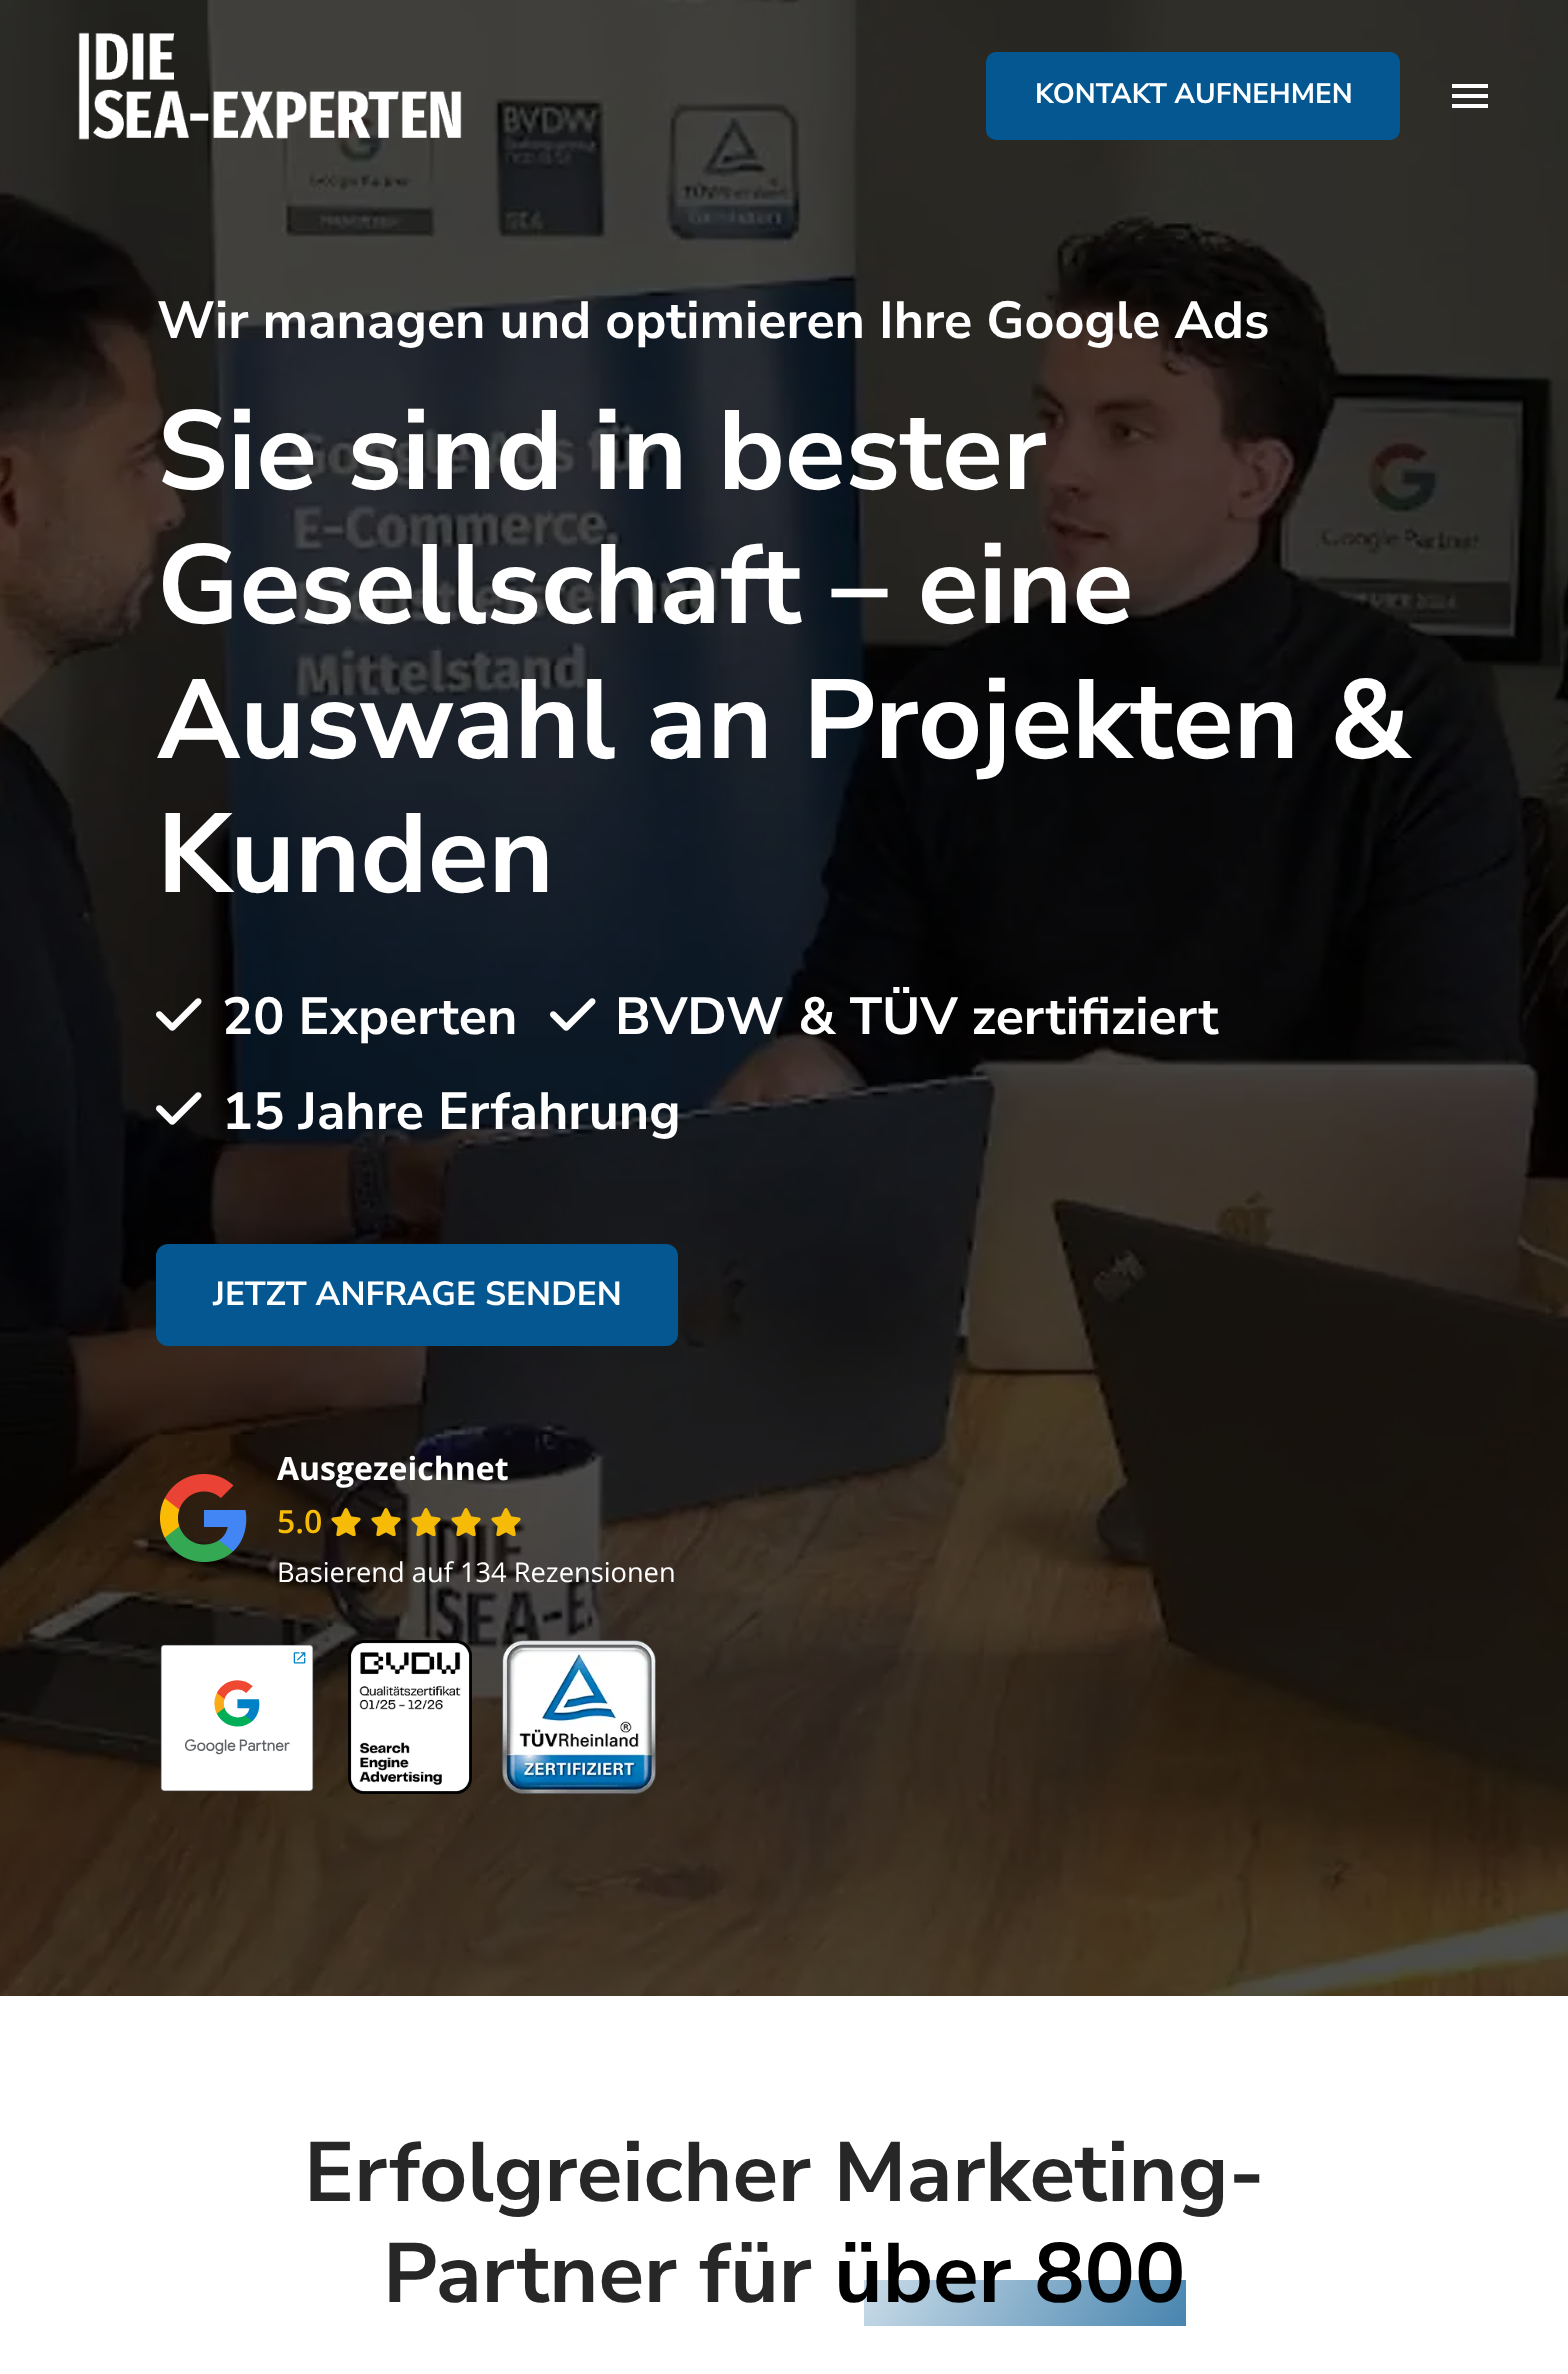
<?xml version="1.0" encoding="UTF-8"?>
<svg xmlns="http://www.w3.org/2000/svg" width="1568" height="2374">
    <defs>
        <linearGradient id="g1" gradientUnits="userSpaceOnUse" x1="898" y1="2220" x2="1182" y2="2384"><stop offset="0" stop-color="#CADCE8"/><stop offset="1" stop-color="#3C7DAA"/></linearGradient>
    </defs>
    <rect width="100%" height="100%" fill="#FFFFFF"/>
    <image x="0" y="0" width="1568" height="1996" href="img_02.png"/>
    <image x="78" y="32" width="384" height="108" href="img_01.png"/>
    <rect x="988" y="54" width="410" height="84" rx="8" fill="#045791" stroke="#045791" stroke-width="4"/>
    <text x="1035" y="103" font-family="Nunito Sans" font-size="28" font-weight="700" fill="#FFFFFF">KONTAKT AUFNEHMEN</text>
    <rect x="1452" y="84" width="36" height="4" fill="#FFFFFF"/>
    <rect x="1452" y="94" width="36" height="4" fill="#FFFFFF"/>
    <rect x="1452" y="104" width="36" height="4" fill="#FFFFFF"/>
    <text x="157" y="338" font-family="Nunito Sans" font-size="52" font-weight="700" fill="#FFFFFF">Wir managen und optimieren Ihre Google Ads</text>
    <text font-family="Nunito Sans" font-size="112" font-weight="700" fill="#FFFFFF">
        <tspan x="157" y="489">Sie sind in bester</tspan>
        <tspan x="157" y="623">Gesellschaft – eine</tspan>
        <tspan x="157" y="758">Auswahl an Projekten &amp;</tspan>
        <tspan x="157" y="892">Kunden</tspan>
    </text>
    <image x="156" y="998" width="46" height="33" href="img_03.png"/>
    <text x="222" y="1034" font-family="Nunito Sans" font-size="52" font-weight="700" fill="#FFFFFF">20 Experten</text>
    <image x="550" y="998" width="46" height="33" href="img_04.png"/>
    <text x="615" y="1034" font-family="Nunito Sans" font-size="52" font-weight="700" fill="#FFFFFF">BVDW &amp; TÜV zertifiziert</text>
    <image x="156" y="1092" width="46" height="33" href="img_05.png"/>
    <text x="222" y="1129" font-family="Nunito Sans" font-size="52" font-weight="700" fill="#FFFFFF">15 Jahre Erfahrung</text>
    <rect x="158" y="1246" width="518" height="98" rx="10" fill="#045791" stroke="#045791" stroke-width="4"/>
    <text x="213" y="1305" font-family="Nunito Sans" font-size="33.5" font-weight="700" fill="#FFFFFF">JETZT ANFRAGE SENDEN</text>
    <image x="160" y="1474" width="87" height="88" href="img_06.png"/>
    <text x="277" y="1480" font-family="Open Sans" font-size="32" font-weight="700" fill="#FFFFFF">Ausgezeichnet</text>
    <text x="277" y="1533" font-family="Open Sans" font-size="32" font-weight="600" fill="#F6BB06">5.0</text>
    <image x="331" y="1508" width="30" height="28" href="img_07.png"/>
    <image x="371" y="1508" width="30" height="28" href="img_08.png"/>
    <image x="411" y="1508" width="30" height="28" href="img_09.png"/>
    <image x="451" y="1508" width="30" height="28" href="img_10.png"/>
    <image x="491" y="1508" width="30" height="28" href="img_11.png"/>
    <text x="277" y="1582" font-family="Open Sans" font-size="27.25" fill="#FFFFFF">Basierend auf 134 Rezensionen</text>
    <image x="160" y="1644" width="154" height="148" href="img_12.png"/>
    <image x="348" y="1640" width="124" height="154" href="img_13.png"/>
    <image x="502" y="1640" width="154" height="154" href="img_14.png"/>
    <text x="304" y="2201" font-family="Nunito Sans" font-size="84" font-weight="700" fill="#272728">Erfolgreicher Marketing-</text>
    <text x="383" y="2302" font-family="Nunito Sans" font-size="84" font-weight="700" fill="#272728">Partner für</text>
    <rect x="864" y="2280" width="322" height="46" fill="url(#g1)"/>
    <text x="834" y="2302" font-family="Nunito Sans" font-size="84" font-weight="700" fill="#000000">über 800</text>
</svg>
